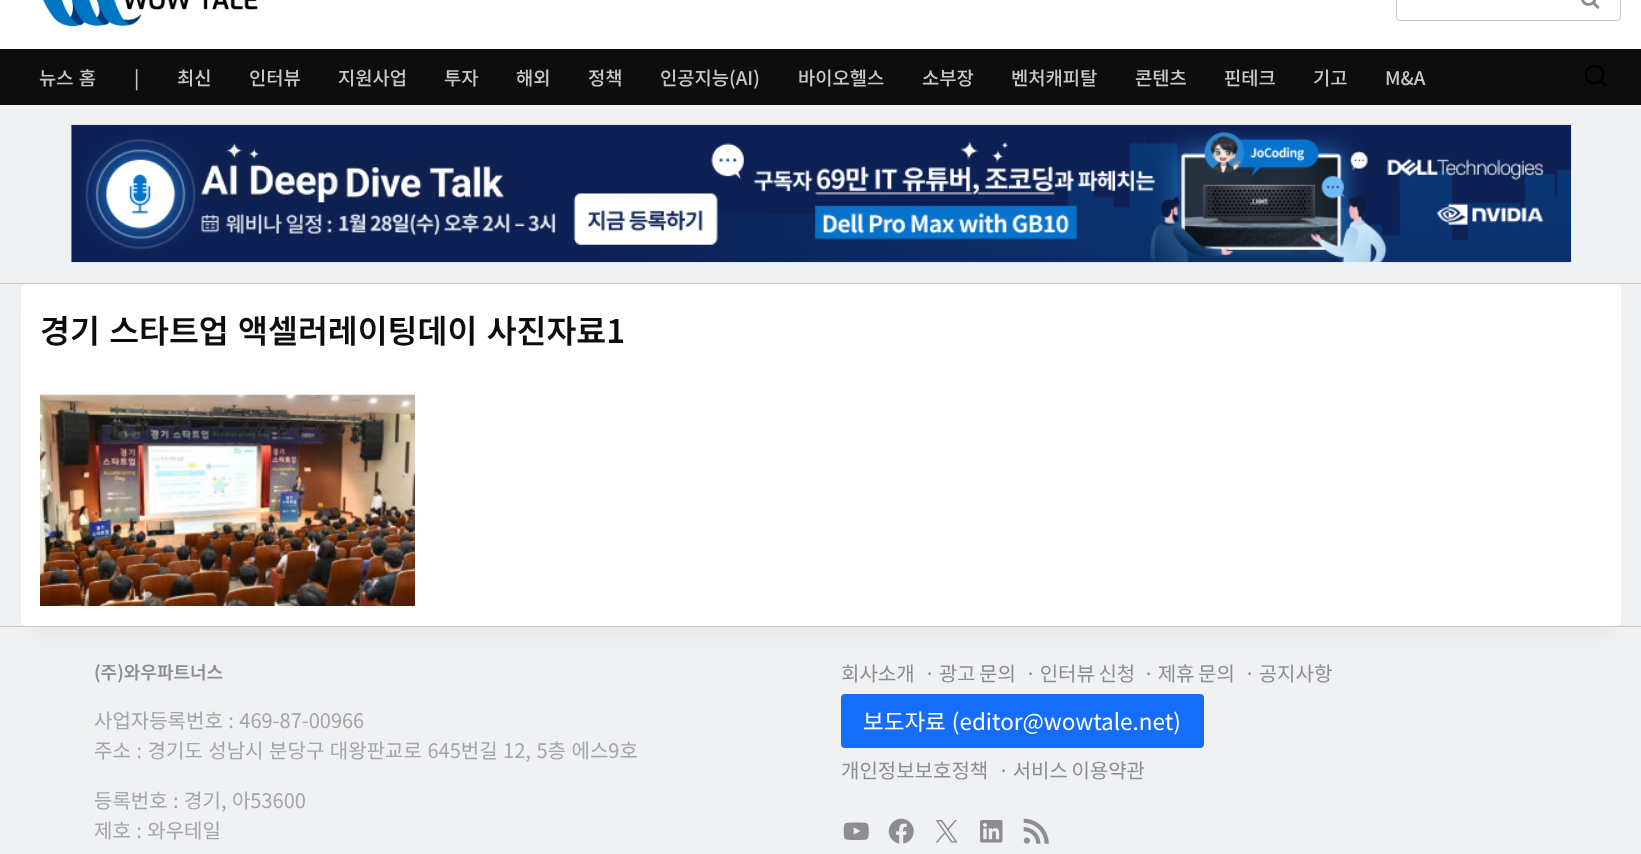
<?xml version="1.0" encoding="UTF-8"?>
<svg xmlns="http://www.w3.org/2000/svg" width="1641" height="854">
    <defs>
        <filter id="blur1" x="-50%" y="-200%" width="200%" height="500%"><feGaussianBlur stdDeviation="9.5"/></filter>
    </defs>
    <rect width="100%" height="100%" fill="#F0F1F2"/>
    <rect x="0" y="0" width="1641" height="49" fill="#FFFFFF"/>
    <image x="43" y="0" width="215" height="27" href="img_01.png"/>
    <rect x="1396.5" y="-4.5" width="224" height="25" rx="3.5" fill="none" stroke="#C8C8C8"/>
    <image x="1581" y="0" width="19" height="9" href="img_02.png"/>
    <rect x="0" y="49" width="1641" height="56" fill="#0D0D0D"/>
    <text x="39" y="85" word-spacing="1" font-family="Noto Sans KR" font-size="18.75" font-weight="500" fill="#C8C8C8">뉴스 홈</text>
    <text x="134" y="85" font-family="Noto Sans KR" font-size="18.75" font-weight="500" fill="#C8C8C8">|</text>
    <text x="177" y="85" font-family="Noto Sans KR" font-size="18.75" font-weight="500" fill="#C8C8C8">최신</text>
    <text x="249" y="85" font-family="Noto Sans KR" font-size="18.75" font-weight="500" fill="#C8C8C8">인터뷰</text>
    <text x="338" y="85" font-family="Noto Sans KR" font-size="18.75" font-weight="500" fill="#C8C8C8">지원사업</text>
    <text x="444" y="85" font-family="Noto Sans KR" font-size="18.75" font-weight="500" fill="#C8C8C8">투자</text>
    <text x="516" y="85" font-family="Noto Sans KR" font-size="18.75" font-weight="500" fill="#C8C8C8">해외</text>
    <text x="588" y="85" font-family="Noto Sans KR" font-size="18.75" font-weight="500" fill="#C8C8C8">정책</text>
    <text x="660" y="85" font-family="Noto Sans KR" font-size="18.75" font-weight="500" fill="#C8C8C8">인공지능(AI)</text>
    <text x="798" y="85" font-family="Noto Sans KR" font-size="18.75" font-weight="500" fill="#C8C8C8">바이오헬스</text>
    <text x="922" y="85" font-family="Noto Sans KR" font-size="18.75" font-weight="500" fill="#C8C8C8">소부장</text>
    <text x="1011" y="85" font-family="Noto Sans KR" font-size="18.75" font-weight="500" fill="#C8C8C8">벤처캐피탈</text>
    <text x="1135" y="85" font-family="Noto Sans KR" font-size="18.75" font-weight="500" fill="#C8C8C8">콘텐츠</text>
    <text x="1224" y="85" font-family="Noto Sans KR" font-size="18.75" font-weight="500" fill="#C8C8C8">핀테크</text>
    <text x="1313" y="85" font-family="Noto Sans KR" font-size="18.75" font-weight="500" fill="#C8C8C8">기고</text>
    <text x="1385" y="85" font-family="Noto Sans KR" font-size="18.75" font-weight="500" fill="#C8C8C8">M&amp;A</text>
    <image x="1585" y="65" width="22" height="22" href="img_03.png"/>
    <rect x="0" y="283" width="1641" height="1" fill="#C8C8C8"/>
    <image x="71" y="124" width="1501" height="139" href="img_04.png"/>
    <rect x="34" y="315" width="1575" height="318" fill="#000000" fill-opacity="0.05" filter="url(#blur1)"/>
    <rect x="21" y="284" width="1600" height="342" rx="5" fill="#FFFFFF"/>
    <text x="40" y="343" word-spacing="2" font-family="Noto Sans KR" font-size="32.5" font-weight="600" fill="#0D0D0D">경기 스타트업 액셀러레이팅데이 사진자료1</text>
    <image x="40" y="394" width="375" height="212" href="img_05.png"/>
    <rect x="0" y="626" width="1641" height="1" fill="#C8C8C8"/>
    <text x="94" y="679" font-family="Noto Sans KR" font-size="18" font-weight="600" fill="#8B8D91">(주)와우파트너스</text>
    <text font-family="Noto Sans KR" font-size="20" fill="#A3A5A9">
        <tspan x="94" y="728" word-spacing="1">사업자등록번호 : 469-87-00966</tspan>
        <tspan x="94" y="758" word-spacing="1.1">주소 : 경기도 성남시 분당구 대왕판교로 645번길 12, 5층 에스9호</tspan>
    </text>
    <text font-family="Noto Sans KR" font-size="20" fill="#A3A5A9">
        <tspan x="94" y="808" word-spacing="1">등록번호 : 경기, 아53600</tspan>
        <tspan x="94" y="838" word-spacing="1">제호 : 와우테일</tspan>
    </text>
    <text x="841" y="681" font-family="Noto Sans KR" font-size="20" fill="#8B8D91">회사소개</text>
    <text x="924" y="681" word-spacing="-1" font-family="Noto Sans KR" font-size="20" fill="#8B8D91">· 광고 문의</text>
    <text x="1025" y="681" word-spacing="-1" font-family="Noto Sans KR" font-size="20" fill="#8B8D91">· 인터뷰 신청</text>
    <text x="1143" y="681" word-spacing="-1" font-family="Noto Sans KR" font-size="20" fill="#8B8D91">· 제휴 문의</text>
    <text x="1244" y="681" word-spacing="-1" font-family="Noto Sans KR" font-size="20" fill="#8B8D91">· 공지사항</text>
    <rect x="841" y="694" width="363" height="54" rx="4" fill="#166DFC"/>
    <text x="863" y="730" word-spacing="1" font-family="Noto Sans KR" font-size="22.5" fill="#FFFFFF">보도자료 (editor@wowtale.net)</text>
    <text x="841" y="778" font-family="Noto Sans KR" font-size="20" fill="#8B8D91">개인정보보호정책</text>
    <text x="998" y="778" word-spacing="-1" font-family="Noto Sans KR" font-size="20" fill="#8B8D91">· 서비스 이용약관</text>
    <image x="843" y="822" width="26" height="19" href="img_06.png"/>
    <image x="888" y="818" width="26" height="26" href="img_07.png"/>
    <image x="935" y="820" width="23" height="23" href="img_08.png"/>
    <image x="980" y="820" width="23" height="23" href="img_09.png"/>
    <image x="1023" y="818" width="26" height="26" href="img_10.png"/>
</svg>
